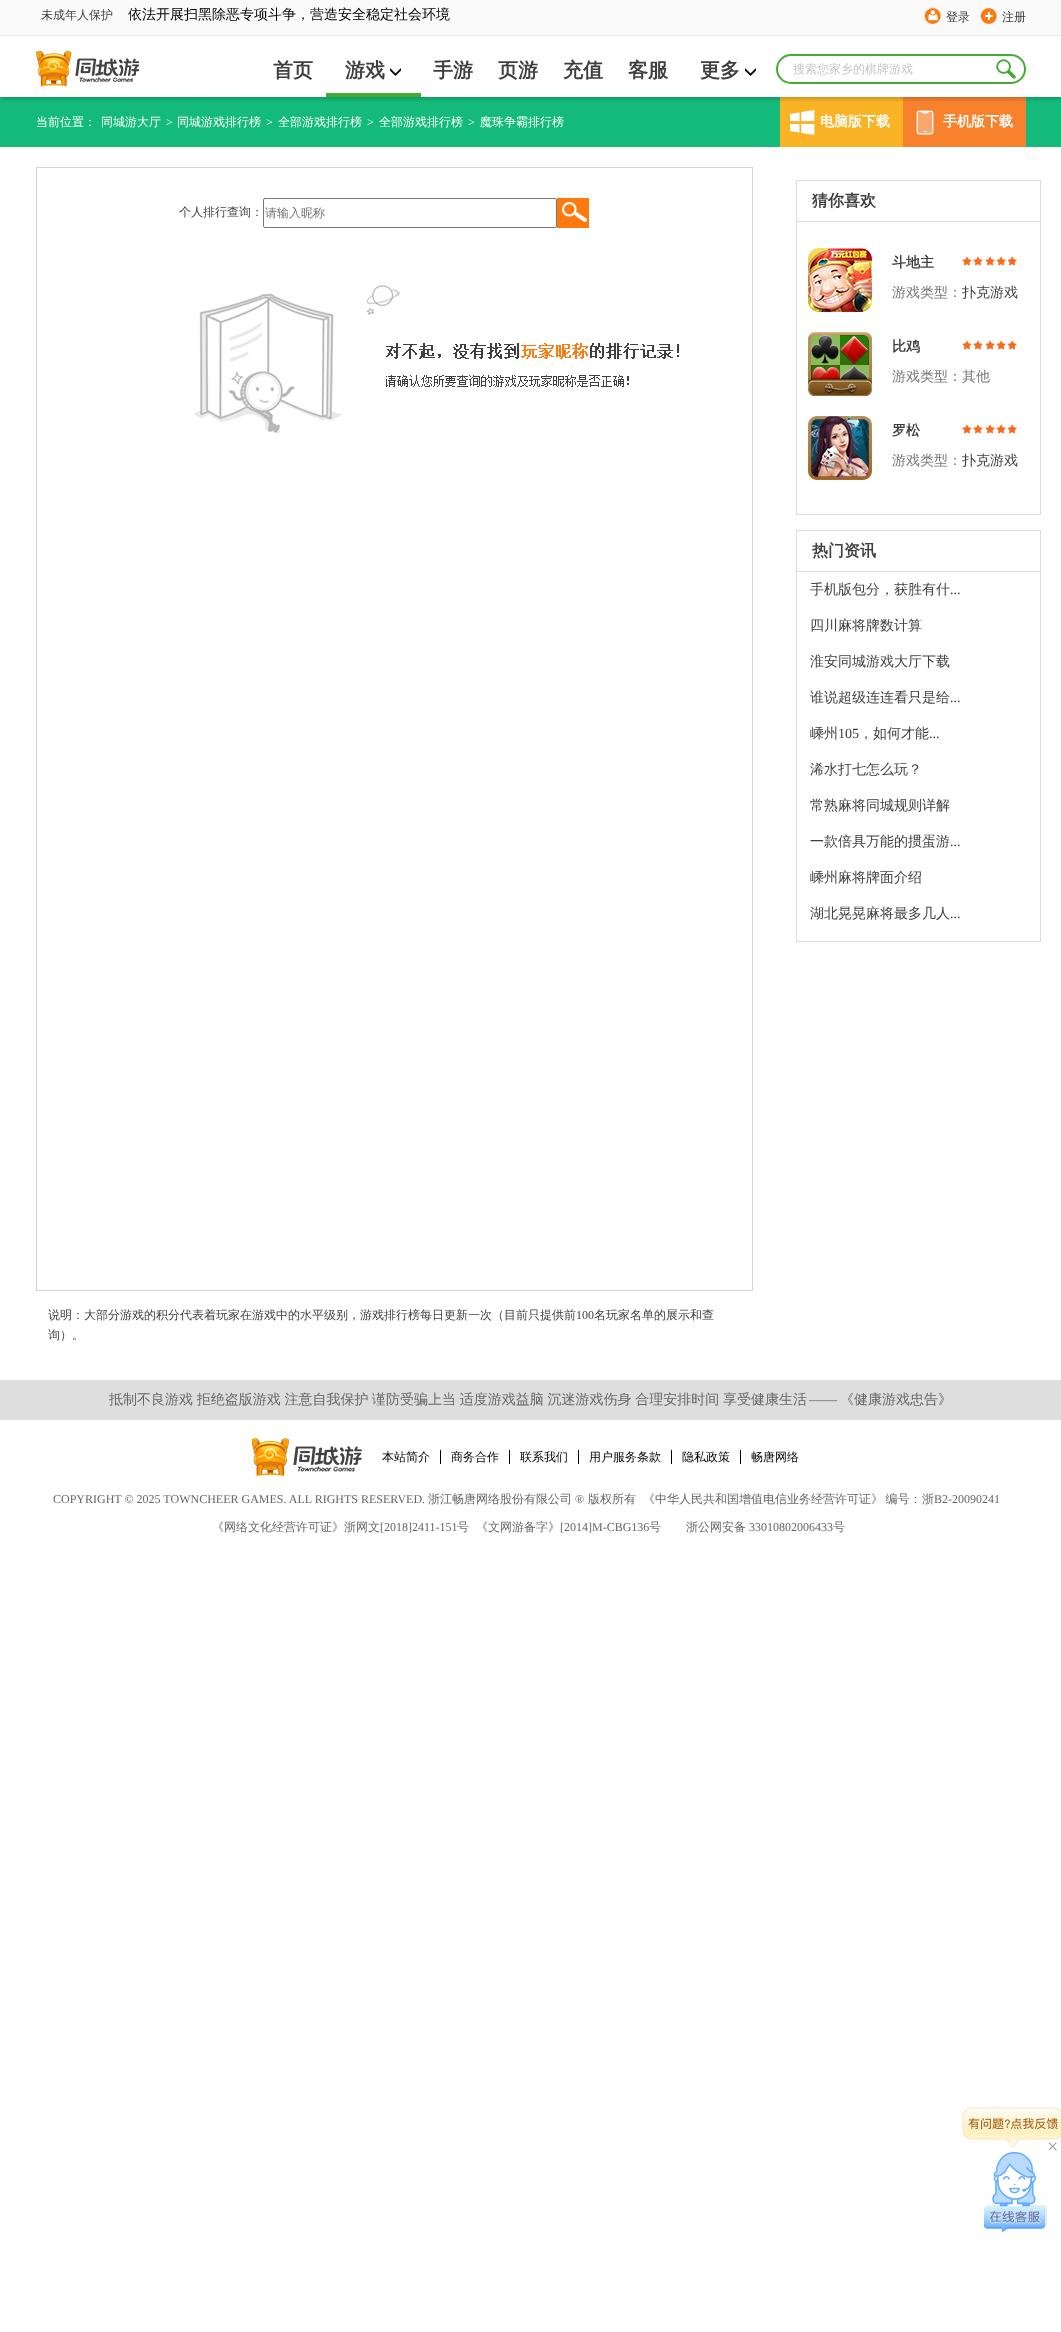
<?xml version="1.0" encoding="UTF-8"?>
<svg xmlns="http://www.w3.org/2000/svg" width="1061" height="2332">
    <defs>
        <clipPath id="clip1"><rect x="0" y="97" width="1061" height="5"/></clipPath>
        <filter id="blur1" x="-50%" y="-200%" width="200%" height="500%"><feGaussianBlur stdDeviation="2.5"/></filter>
        <clipPath id="clip2"><rect x="793" y="61" width="196" height="17"/></clipPath>
        <clipPath id="clip3"><rect x="810" y="716" width="217" height="36"/></clipPath>
        <clipPath id="clip4"><rect x="810" y="860" width="217" height="36"/></clipPath>
    </defs>
    <rect width="100%" height="100%" fill="#FFFFFF"/>
    <rect x="0" y="97" width="1061" height="50" fill="#14BA79"/>
    <rect x="780" y="97" width="123" height="50" fill="#F9B325"/>
    <rect x="903" y="97" width="123" height="50" fill="#F8812E"/>
    <g clip-path="url(#clip1)">
        <rect x="1" y="2" width="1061" height="97" fill="#0E050A" fill-opacity="0.2" filter="url(#blur1)"/>
    </g>
    <rect x="0" y="0" width="1061" height="35" fill="#FAFAFA"/>
    <rect x="0" y="35" width="1061" height="1" fill="#E8EEEF"/>
    <text x="41" y="19" font-family="WenQuanYi Zen Hei" font-size="12" font-weight="500" fill="#3F3F3F">未成年人保护</text>
    <text x="128" y="19" font-family="WenQuanYi Zen Hei" font-size="14" font-weight="500" fill="#000000">依法开展扫黑除恶专项斗争，营造安全稳定社会环境</text>
    <image x="924" y="8" width="17" height="16" href="img_01.png"/>
    <text x="946" y="21" font-family="WenQuanYi Zen Hei" font-size="12" font-weight="500" fill="#3F3F3F">登录</text>
    <image x="980" y="8" width="17" height="16" href="img_02.png"/>
    <text x="1002" y="21" font-family="WenQuanYi Zen Hei" font-size="12" font-weight="500" fill="#3F3F3F">注册</text>
    <image x="36" y="51" width="103" height="36" href="img_03.png"/>
    <text x="273" y="77" font-family="WenQuanYi Zen Hei" font-size="20" font-weight="700" fill="#3F3F3F">首页</text>
    <rect x="326" y="93" width="95" height="4" fill="#46AB35"/>
    <text x="345" y="77" font-family="WenQuanYi Zen Hei" font-size="20" font-weight="700" fill="#3F3F3F">游戏</text>
    <image x="390" y="68" width="11" height="8" href="img_04.png"/>
    <text x="433" y="77" font-family="WenQuanYi Zen Hei" font-size="20" font-weight="700" fill="#3F3F3F">手游</text>
    <text x="498" y="77" font-family="WenQuanYi Zen Hei" font-size="20" font-weight="700" fill="#3F3F3F">页游</text>
    <text x="563" y="77" font-family="WenQuanYi Zen Hei" font-size="20" font-weight="700" fill="#3F3F3F">充值</text>
    <text x="628" y="77" font-family="WenQuanYi Zen Hei" font-size="20" font-weight="700" fill="#3F3F3F">客服</text>
    <text x="700" y="77" font-family="WenQuanYi Zen Hei" font-size="20" font-weight="700" fill="#3F3F3F">更多</text>
    <image x="745" y="68" width="11" height="8" href="img_04.png"/>
    <rect x="777" y="55" width="248" height="28" rx="14" fill="none" stroke="#46AB35" stroke-width="2"/>
    <g clip-path="url(#clip2)">
        <text x="793" y="73" font-family="WenQuanYi Zen Hei" font-size="12" font-weight="500" fill="#C6C6C6">搜索您家乡的棋牌游戏</text>
    </g>
    <image x="996" y="59" width="20" height="20" href="img_05.png"/>
    <text x="36" y="126" font-family="WenQuanYi Zen Hei" font-size="12" font-weight="500" fill="#FFFFFF">当前位置：</text>
    <text x="101" y="126" font-family="WenQuanYi Zen Hei" font-size="12" font-weight="500" fill="#FFFFFF">同城游大厅</text>
    <text x="166" y="126" font-family="Liberation Serif" font-size="12" fill="#FFFFFF">&gt;</text>
    <text x="177" y="126" font-family="WenQuanYi Zen Hei" font-size="12" font-weight="500" fill="#FFFFFF">同城游戏排行榜</text>
    <text x="266" y="126" font-family="Liberation Serif" font-size="12" fill="#FFFFFF">&gt;</text>
    <text x="278" y="126" font-family="WenQuanYi Zen Hei" font-size="12" font-weight="500" fill="#FFFFFF">全部游戏排行榜</text>
    <text x="367" y="126" font-family="Liberation Serif" font-size="12" fill="#FFFFFF">&gt;</text>
    <text x="379" y="126" font-family="WenQuanYi Zen Hei" font-size="12" font-weight="500" fill="#FFFFFF">全部游戏排行榜</text>
    <text x="468" y="126" font-family="Liberation Serif" font-size="12" fill="#FFFFFF">&gt;</text>
    <text x="480" y="126" font-family="WenQuanYi Zen Hei" font-size="12" font-weight="500" fill="#FFFFFF">魔珠争霸排行榜</text>
    <image x="790" y="110" width="25" height="25" href="img_06.png"/>
    <text x="820" y="126" font-family="WenQuanYi Zen Hei" font-size="14" font-weight="700" fill="#FFFFFF">电脑版下载</text>
    <image x="916" y="110" width="18" height="25" href="img_07.png"/>
    <text x="943" y="126" font-family="WenQuanYi Zen Hei" font-size="14" font-weight="700" fill="#FFFFFF">手机版下载</text>
    <rect x="36.5" y="167.5" width="716" height="1123" fill="none" stroke="#D1D5D4"/>
    <text x="179" y="216" font-family="WenQuanYi Zen Hei" font-size="12" font-weight="500" fill="#3F3F3F">个人排行查询：</text>
    <rect x="263.5" y="198.5" width="293" height="29" rx="1.5" fill="none" stroke="#767676"/>
    <text x="265" y="217" font-family="WenQuanYi Zen Hei" font-size="12" font-weight="500" fill="#757575">请输入昵称</text>
    <image x="557" y="198" width="32" height="30" href="img_08.png"/>
    <image x="194" y="285" width="485" height="149" href="img_09.png"/>
    <rect x="796.5" y="180.5" width="244" height="334" fill="none" stroke="#DADDDC"/>
    <rect x="797" y="221" width="243" height="1" fill="#DADDDC"/>
    <text x="812" y="206" font-family="WenQuanYi Zen Hei" font-size="16" font-weight="700" fill="#3F3F3F">猜你喜欢</text>
    <image x="808" y="248" width="64" height="64" href="img_10.png"/>
    <text x="892" y="267" font-family="WenQuanYi Zen Hei" font-size="14" font-weight="700" fill="#3F3F3F">斗地主</text>
    <image x="962" y="256" width="55" height="10" href="img_11.png"/>
    <text x="892" y="297" font-family="WenQuanYi Zen Hei" font-size="14" font-weight="500" fill="#757575">游戏类型：</text>
    <text x="962" y="297" font-family="WenQuanYi Zen Hei" font-size="14" font-weight="500" fill="#3F3F3F">扑克游戏</text>
    <image x="808" y="332" width="64" height="64" href="img_12.png"/>
    <text x="892" y="351" font-family="WenQuanYi Zen Hei" font-size="14" font-weight="700" fill="#3F3F3F">比鸡</text>
    <image x="962" y="340" width="55" height="10" href="img_11.png"/>
    <text x="892" y="381" font-family="WenQuanYi Zen Hei" font-size="14" font-weight="500" fill="#757575">游戏类型：其他</text>
    <image x="808" y="416" width="64" height="64" href="img_13.png"/>
    <text x="892" y="435" font-family="WenQuanYi Zen Hei" font-size="14" font-weight="700" fill="#3F3F3F">罗松</text>
    <image x="962" y="424" width="55" height="10" href="img_11.png"/>
    <text x="892" y="465" font-family="WenQuanYi Zen Hei" font-size="14" font-weight="500" fill="#757575">游戏类型：</text>
    <text x="962" y="465" font-family="WenQuanYi Zen Hei" font-size="14" font-weight="500" fill="#3F3F3F">扑克游戏</text>
    <rect x="796.5" y="530.5" width="244" height="411" fill="none" stroke="#DADDDC"/>
    <rect x="797" y="571" width="243" height="1" fill="#DADDDC"/>
    <text x="812" y="556" font-family="WenQuanYi Zen Hei" font-size="16" font-weight="700" fill="#3F3F3F">热门资讯</text>
    <text x="810" y="594" font-family="WenQuanYi Zen Hei" font-size="14" font-weight="500" fill="#3F3F3F">手机版包分，获胜有什</text>
    <text x="950" y="594" font-family="Liberation Serif" font-size="14" fill="#3F3F3F">...</text>
    <text x="810" y="630" font-family="WenQuanYi Zen Hei" font-size="14" font-weight="500" fill="#3F3F3F">四川麻将牌数计算</text>
    <text x="810" y="666" font-family="WenQuanYi Zen Hei" font-size="14" font-weight="500" fill="#3F3F3F">淮安同城游戏大厅下载</text>
    <text x="810" y="702" font-family="WenQuanYi Zen Hei" font-size="14" font-weight="500" fill="#3F3F3F">谁说超级连连看只是给</text>
    <text x="950" y="702" font-family="Liberation Serif" font-size="14" fill="#3F3F3F">...</text>
    <g clip-path="url(#clip3)">
        <text x="810" y="738" font-family="WenQuanYi Zen Hei" font-size="14" font-weight="500" fill="#3F3F3F">嵊州</text>
    </g>
    <text x="838" y="738" font-family="Liberation Serif" font-size="14" fill="#3F3F3F">105</text>
    <text x="859" y="738" font-family="WenQuanYi Zen Hei" font-size="14" font-weight="500" fill="#3F3F3F">，如何才能</text>
    <text x="929" y="738" font-family="Liberation Serif" font-size="14" fill="#3F3F3F">...</text>
    <text x="810" y="774" font-family="WenQuanYi Zen Hei" font-size="14" font-weight="500" fill="#3F3F3F">浠水打七怎么玩？</text>
    <text x="810" y="810" font-family="WenQuanYi Zen Hei" font-size="14" font-weight="500" fill="#3F3F3F">常熟麻将同城规则详解</text>
    <text x="810" y="846" font-family="WenQuanYi Zen Hei" font-size="14" font-weight="500" fill="#3F3F3F">一款倍具万能的掼蛋游</text>
    <text x="950" y="846" font-family="Liberation Serif" font-size="14" fill="#3F3F3F">...</text>
    <g clip-path="url(#clip4)">
        <text x="810" y="882" font-family="WenQuanYi Zen Hei" font-size="14" font-weight="500" fill="#3F3F3F">嵊州麻将牌面介绍</text>
    </g>
    <text x="810" y="918" font-family="WenQuanYi Zen Hei" font-size="14" font-weight="500" fill="#3F3F3F">湖北晃晃麻将最多几人</text>
    <text x="950" y="918" font-family="Liberation Serif" font-size="14" fill="#3F3F3F">...</text>
    <text x="48" y="1319" font-family="WenQuanYi Zen Hei" font-size="12" font-weight="500" fill="#3F3F3F">说明：大部分游戏的积分代表着玩家在游戏中的水平级别，游戏排行榜每日更新一次（目前只提供前</text>
    <text x="576" y="1319" font-family="Liberation Serif" font-size="12" fill="#3F3F3F">100</text>
    <text x="594" y="1319" font-family="WenQuanYi Zen Hei" font-size="12" font-weight="500" fill="#3F3F3F">名玩家名单的展示和查</text>
    <text x="48" y="1339" font-family="WenQuanYi Zen Hei" font-size="12" font-weight="500" fill="#3F3F3F">询）。</text>
    <rect x="0" y="1380" width="1061" height="40" fill="#DEDEDE"/>
    <text x="109" y="1404" word-spacing="-0.5" font-family="WenQuanYi Zen Hei" font-size="14" font-weight="500" fill="#666666">抵制不良游戏 拒绝盗版游戏 注意自我保护 谨防受骗上当 适度游戏益脑 沉迷游戏伤身 合理安排时间 享受健康生活</text>
    <text x="809" y="1404" font-family="Liberation Serif" font-size="14" fill="#666666">——</text>
    <text x="840" y="1404" font-family="WenQuanYi Zen Hei" font-size="14" font-weight="500" fill="#666666">《健康游戏忠告》</text>
    <image x="252" y="1438" width="110" height="38" href="img_14.png"/>
    <text x="382" y="1461" font-family="WenQuanYi Zen Hei" font-size="12" font-weight="500" fill="#000000">本站简介</text>
    <rect x="440" y="1450" width="1" height="14" fill="#000000"/>
    <text x="451" y="1461" font-family="WenQuanYi Zen Hei" font-size="12" font-weight="500" fill="#000000">商务合作</text>
    <rect x="509" y="1450" width="1" height="14" fill="#000000"/>
    <text x="520" y="1461" font-family="WenQuanYi Zen Hei" font-size="12" font-weight="500" fill="#000000">联系我们</text>
    <rect x="578" y="1450" width="1" height="14" fill="#000000"/>
    <text x="589" y="1461" font-family="WenQuanYi Zen Hei" font-size="12" font-weight="500" fill="#000000">用户服务条款</text>
    <rect x="671" y="1450" width="1" height="14" fill="#000000"/>
    <text x="682" y="1461" font-family="WenQuanYi Zen Hei" font-size="12" font-weight="500" fill="#000000">隐私政策</text>
    <rect x="740" y="1450" width="1" height="14" fill="#000000"/>
    <text x="751" y="1461" font-family="WenQuanYi Zen Hei" font-size="12" font-weight="500" fill="#000000">畅唐网络</text>
    <text x="53" y="1503" font-family="Liberation Serif" font-size="12" fill="#666666">COPYRIGHT © 2025 TOWNCHEER GAMES. ALL RIGHTS RESERVED.</text>
    <text x="428" y="1503" font-family="WenQuanYi Zen Hei" font-size="12" font-weight="500" fill="#666666">浙江畅唐网络股份有限公司</text>
    <text x="575" y="1503" font-family="Liberation Serif" font-size="12" fill="#666666">®</text>
    <text x="588" y="1503" font-family="WenQuanYi Zen Hei" font-size="12" font-weight="500" fill="#666666">版权所有</text>
    <text x="643" y="1503" word-spacing="-1" font-family="WenQuanYi Zen Hei" font-size="12" font-weight="500" fill="#666666">《中华人民共和国增值电信业务经营许可证》 编号：</text>
    <text x="922" y="1503" font-family="WenQuanYi Zen Hei" font-size="12" font-weight="500" fill="#666666">浙</text>
    <text x="934" y="1503" font-family="Liberation Serif" font-size="12" fill="#666666">B2-20090241</text>
    <text x="212" y="1531" font-family="WenQuanYi Zen Hei" font-size="12" font-weight="500" fill="#666666">《网络文化经营许可证》浙网文</text>
    <text x="380" y="1531" font-family="Liberation Serif" font-size="12" fill="#666666">[2018]2411-151</text>
    <text x="457" y="1531" font-family="WenQuanYi Zen Hei" font-size="12" font-weight="500" fill="#666666">号</text>
    <text x="476" y="1531" font-family="WenQuanYi Zen Hei" font-size="12" font-weight="500" fill="#666666">《文网游备字》</text>
    <text x="560" y="1531" font-family="Liberation Serif" font-size="12" fill="#666666">[2014]M-CBG136</text>
    <text x="649" y="1531" font-family="WenQuanYi Zen Hei" font-size="12" font-weight="500" fill="#666666">号</text>
    <text x="686" y="1531" font-family="WenQuanYi Zen Hei" font-size="12" font-weight="500" fill="#666666">浙公网安备</text>
    <text x="749" y="1531" font-family="Liberation Serif" font-size="12" fill="#666666">33010802006433</text>
    <text x="833" y="1531" font-family="WenQuanYi Zen Hei" font-size="12" font-weight="500" fill="#666666">号</text>
    <image x="984" y="2152" width="63" height="80" href="img_15.png"/>
    <image x="962" y="2107" width="99" height="40" href="img_16.png"/>
    <text x="1047" y="2153" font-family="Liberation Serif" font-size="20" fill="#999999">×</text>
</svg>
